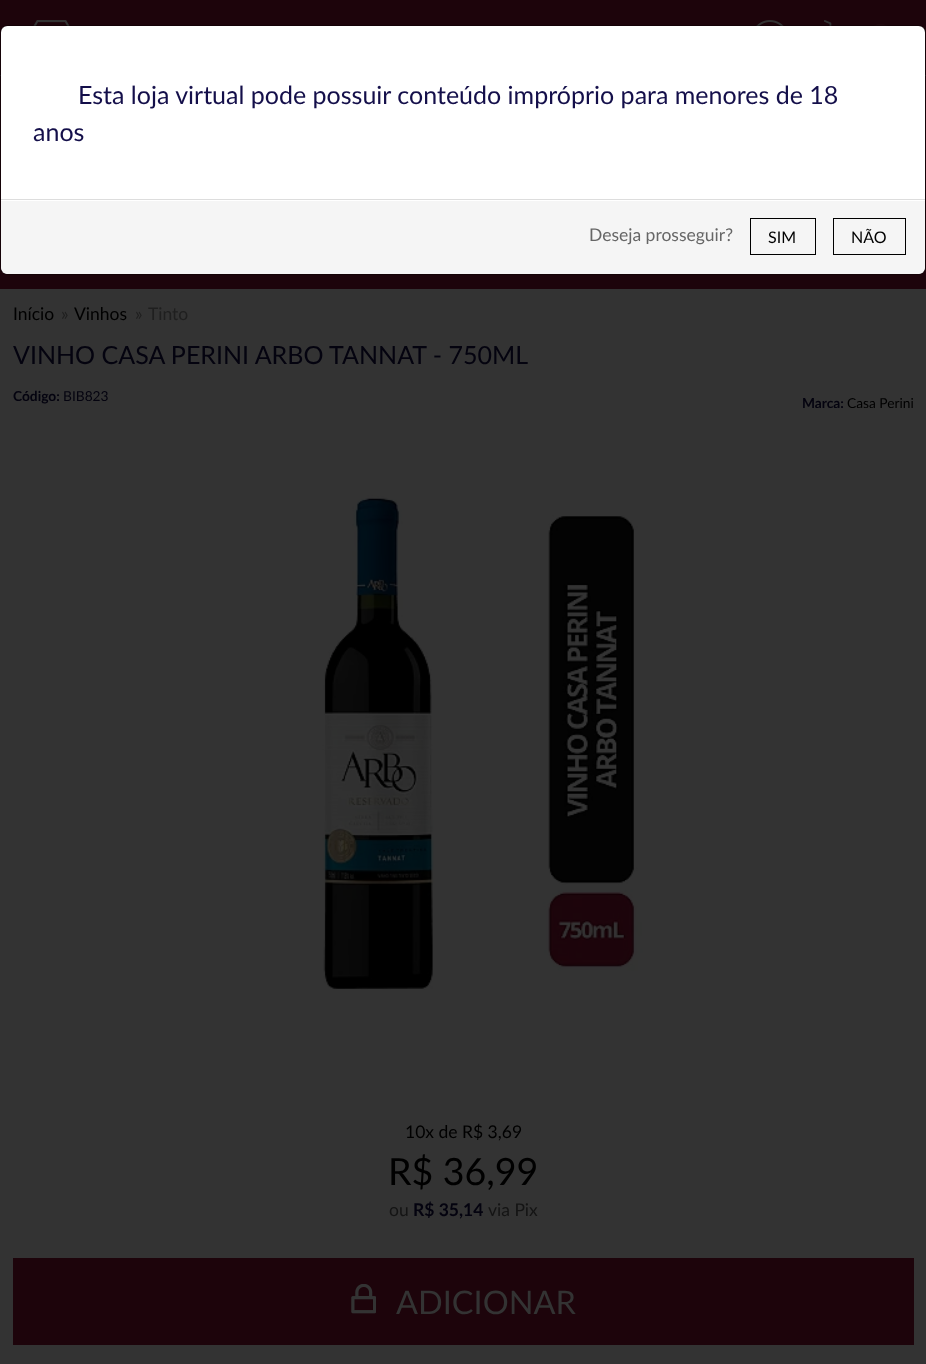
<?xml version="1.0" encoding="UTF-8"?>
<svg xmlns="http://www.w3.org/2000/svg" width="926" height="1364">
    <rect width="100%" height="100%" fill="#333333"/>
    <rect x="0" y="0" width="926" height="289" fill="#1D040B"/>
    <rect x="0" y="75" width="926" height="1" fill="#252525"/>
    <circle cx="880.5" cy="39.5" r="15.5" fill="#230910"/>
    <rect x="1" y="26" width="924" height="248" rx="6" fill="#FFFFFF"/>
    <image x="33" y="20" width="37" height="6" href="img_01.png"/>
    <image x="756" y="20" width="28" height="6" href="img_02.png"/>
    <image x="824" y="20" width="8" height="6" href="img_03.png"/>
    <rect x="0.5" y="25.5" width="925" height="249" rx="7.5" fill="none" stroke="#000000" stroke-opacity="0.3"/>
    <text x="78" y="104" font-family="Lato" font-size="25" fill="#140F4A">Esta loja virtual pode possuir conteúdo impróprio para menores de 18</text>
    <text x="33" y="141" font-family="Lato" font-size="25" fill="#140F4A">anos</text>
    <path d="M 1 199 H 925 V 266 C 925 270.5 921.5 274 917 274 H 9 C 4.5 274 1 270.5 1 266 Z" fill="#F5F5F5"/>
    <rect x="1" y="200" width="924" height="1" fill="#FFFFFF"/>
    <rect x="1" y="199" width="924" height="1" fill="#DDDDDD"/>
    <text x="589" y="241" font-family="Lato" font-size="17.5" fill="#666666">Deseja prosseguir?</text>
    <rect x="750.5" y="218.5" width="65" height="36" fill="none" stroke="#000000"/>
    <text x="768" y="243" font-family="Lato" font-size="16" fill="#000000">SIM</text>
    <rect x="833.5" y="218.5" width="72" height="36" fill="none" stroke="#000000"/>
    <text x="851" y="243" font-family="Lato" font-size="16" fill="#000000">NÃO</text>
    <text x="13" y="320" font-family="Lato" font-size="17.5" fill="#000000">Início</text>
    <text x="61" y="320" font-family="Lato" font-size="17.5" fill="#1F1F1F">»</text>
    <text x="74" y="320" font-family="Lato" font-size="17.5" fill="#000000">Vinhos</text>
    <text x="135" y="320" font-family="Lato" font-size="17.5" fill="#1F1F1F">»</text>
    <text x="148" y="320" font-family="Lato" font-size="17.5" fill="#1F1F1F">Tinto</text>
    <text x="13" y="364" font-family="Lato" font-size="25" fill="#04030F">VINHO CASA PERINI ARBO TANNAT - 750ML</text>
    <text x="13" y="401" font-family="Lato" font-size="13.75" font-weight="700" fill="#04030F">Código:</text>
    <text x="63" y="401" font-family="Lato" font-size="13.75" fill="#04030F">BIB823</text>
    <text x="802" y="408" font-family="Lato" font-size="13.75" font-weight="700" fill="#04030F">Marca:</text>
    <text x="847" y="408" font-family="Lato" font-size="13.75" fill="#000000">Casa Perini</text>
    <image x="322" y="495" width="321" height="495" href="img_04.png"/>
    <text x="405" y="1138" font-family="Lato" font-size="17.5" fill="#000000">10x de R$ 3,69</text>
    <text x="388" y="1185" font-family="Lato" font-size="37.5" fill="#000000">R$ 36,99</text>
    <text x="389" y="1216" font-family="Lato" font-size="17.5" fill="#141414">ou</text>
    <text x="413" y="1216" font-family="Lato" font-size="17.5" font-weight="700" fill="#04030F">R$ 35,14</text>
    <text x="488" y="1216" font-family="Lato" font-size="17.5" fill="#141414">via Pix</text>
    <rect x="13" y="1258" width="901" height="87" fill="#1D040B"/>
    <image x="351" y="1284" width="25" height="30" href="img_05.png"/>
    <text x="396" y="1314" font-family="Lato" font-size="32.5" fill="#333333">ADICIONAR</text>
</svg>
